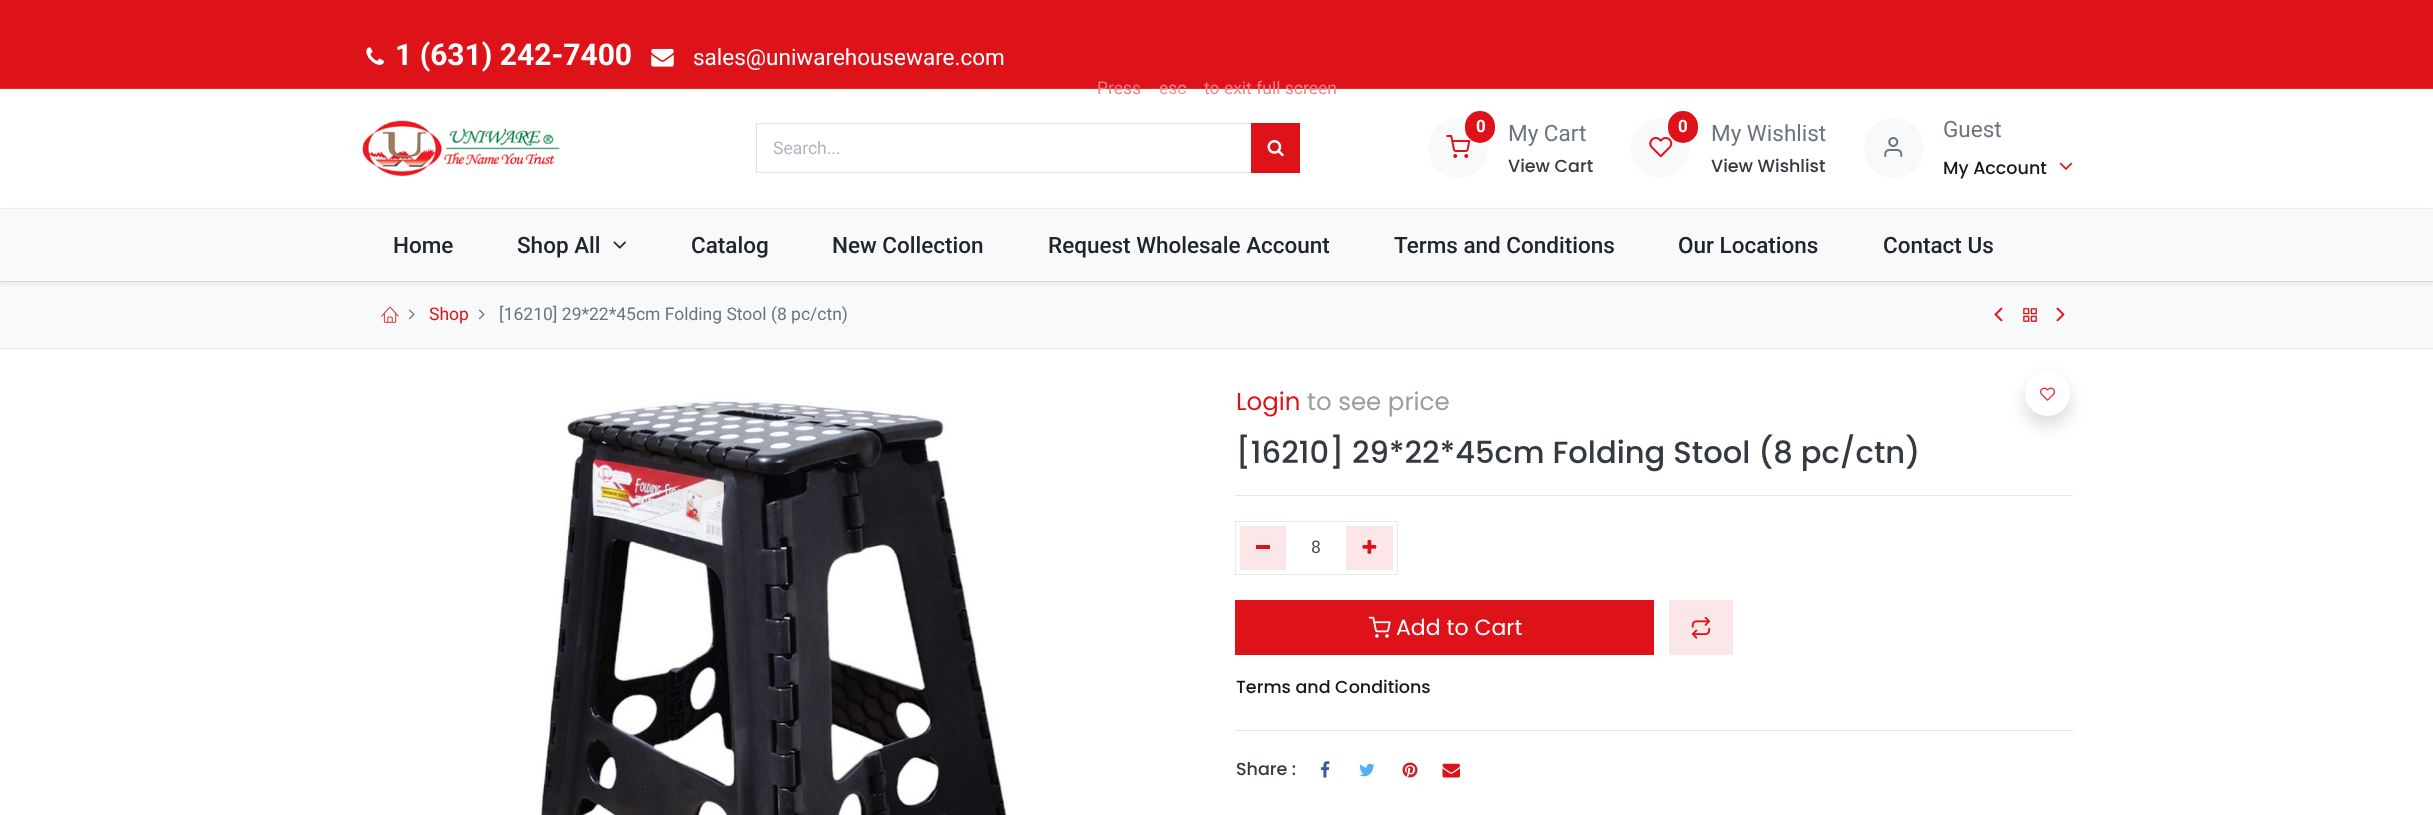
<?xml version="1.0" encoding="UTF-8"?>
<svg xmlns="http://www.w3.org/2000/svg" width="2433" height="815">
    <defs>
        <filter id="blur1" x="-50%" y="-200%" width="200%" height="500%"><feGaussianBlur stdDeviation="2.5"/></filter>
        <filter id="blur2" x="-50%" y="-200%" width="200%" height="500%"><feGaussianBlur stdDeviation="9"/></filter>
    </defs>
    <rect width="100%" height="100%" fill="#FFFFFF"/>
    <rect x="0" y="0" width="2433" height="88" fill="#DE1219"/>
    <rect x="0" y="88" width="2433" height="1" fill="#E22E35"/>
    <image x="366" y="47" width="18" height="18" href="img_01.png"/>
    <text x="395" y="65" font-family="Roboto" font-size="30" font-weight="700" fill="#FFFFFF">1 (631) 242-7400</text>
    <image x="651" y="48" width="23" height="19" href="img_02.png"/>
    <text x="693" y="65" font-family="Roboto" font-size="22.5" fill="#FFFFFF">sales@uniwarehouseware.com</text>
    <rect x="0" y="208" width="2433" height="1" fill="#EDEEEF"/>
    <image x="362" y="120" width="198" height="57" href="img_03.png"/>
    <rect x="756.5" y="123.5" width="496" height="49" fill="none" stroke="#DEE2E6"/>
    <text x="773" y="154" font-family="Roboto" font-size="17.5" fill="#ADB5BD">Search...</text>
    <rect x="1251" y="123" width="49" height="50" fill="#DE1219"/>
    <image x="1267" y="140" width="17" height="17" href="img_04.png"/>
    <circle cx="1458" cy="148" r="30" fill="#F8F9FA"/>
    <image x="1446" y="135" width="25" height="23" href="img_05.png"/>
    <rect x="1465" y="111" width="30" height="32" rx="15" fill="#DE1219"/>
    <text x="1476" y="132" font-family="Roboto" font-size="17" font-weight="700" fill="#FFFFFF">0</text>
    <text x="1508" y="141" font-family="Roboto" font-size="22.5" fill="#6C757D">My Cart</text>
    <text x="1508" y="172" font-family="Poppins" font-size="17.5" font-weight="500" fill="#343A40">View Cart</text>
    <circle cx="1660" cy="148" r="30" fill="#F8F9FA"/>
    <image x="1649" y="137" width="24" height="21" href="img_06.png"/>
    <rect x="1668" y="111" width="30" height="32" rx="15" fill="#DE1219"/>
    <text x="1678" y="132" font-family="Roboto" font-size="17" font-weight="700" fill="#FFFFFF">0</text>
    <text x="1711" y="141" font-family="Roboto" font-size="22.5" fill="#6C757D">My Wishlist</text>
    <text x="1711" y="172" font-family="Poppins" font-size="17.5" font-weight="500" fill="#343A40">View Wishlist</text>
    <circle cx="1894" cy="148" r="30" fill="#F8F9FA"/>
    <image x="1884" y="137" width="19" height="20" href="img_07.png"/>
    <text x="1943" y="137" font-family="Roboto" font-size="22.5" fill="#6C757D">Guest</text>
    <text x="1943" y="174" font-family="Poppins" font-size="17.5" font-weight="500" fill="#1B1818">My Account</text>
    <image x="2059" y="162" width="14" height="8" href="img_08.png"/>
    <rect x="0" y="282" width="2433" height="66" fill="#F8F9FA"/>
    <rect x="0" y="281" width="2433" height="1" fill="#E5E5E5"/>
    <rect x="0" y="211" width="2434" height="73" fill="#000000" fill-opacity="0.07" filter="url(#blur1)"/>
    <rect x="0" y="209" width="2433" height="72" fill="#F8F9FA"/>
    <text x="393" y="253" font-family="Roboto" font-size="22.5" font-weight="500" fill="#212529">Home</text>
    <text x="517" y="253" font-family="Roboto" font-size="22.5" font-weight="500" fill="#212529">Shop All</text>
    <image x="613" y="241" width="13" height="8" href="img_09.png"/>
    <text x="691" y="253" font-family="Roboto" font-size="22.5" font-weight="500" fill="#212529">Catalog</text>
    <text x="832" y="253" font-family="Roboto" font-size="22.5" font-weight="500" fill="#212529">New Collection</text>
    <text x="1048" y="253" font-family="Roboto" font-size="22.5" font-weight="500" fill="#212529">Request Wholesale Account</text>
    <text x="1394" y="253" font-family="Roboto" font-size="22.5" font-weight="500" fill="#212529">Terms and Conditions</text>
    <text x="1678" y="253" font-family="Roboto" font-size="22.5" font-weight="500" fill="#212529">Our Locations</text>
    <text x="1883" y="253" font-family="Roboto" font-size="22.5" font-weight="500" fill="#212529">Contact Us</text>
    <rect x="0" y="348" width="2433" height="1" fill="#E5E5E5"/>
    <image x="381" y="307" width="18" height="16" href="img_10.png"/>
    <image x="408" y="309" width="7" height="11" href="img_11.png"/>
    <text x="429" y="320" font-family="Roboto" font-size="17.5" fill="#DE1219">Shop</text>
    <image x="478" y="309" width="7" height="11" href="img_11.png"/>
    <text x="499" y="320" font-family="Roboto" font-size="17.5" fill="#6C757D">[16210] 29*22*45cm Folding Stool (8 pc/ctn)</text>
    <image x="1994" y="307" width="9" height="15" href="img_12.png"/>
    <image x="2023" y="308" width="14" height="14" href="img_13.png"/>
    <image x="2056" y="307" width="9" height="15" href="img_14.png"/>
    <image x="539" y="398" width="468" height="417" href="img_15.png"/>
    <text x="1236" y="410" font-family="Poppins" font-size="24.5" fill="#DE1219">Login</text>
    <text x="1307" y="410" font-family="Poppins" font-size="24.5" fill="#989EA4">to see price</text>
    <text x="1236" y="463" font-family="Poppins" font-size="30.6" font-weight="500" fill="#343A40">[16210] 29*22*45cm Folding Stool (8 pc/ctn)</text>
    <rect x="1235" y="495" width="838" height="1" fill="#E6E6E6"/>
    <rect x="1235.5" y="521.5" width="162" height="53" fill="none" stroke="#E9ECEF"/>
    <rect x="1240" y="526" width="46" height="44" fill="#FCE7E8"/>
    <rect x="1256" y="545" width="14" height="4" fill="#DE1219"/>
    <text x="1311" y="553" font-family="Roboto" font-size="17.5" fill="#495057">8</text>
    <rect x="1346" y="526" width="47" height="44" fill="#FCE7E8"/>
    <image x="1362" y="540" width="15" height="14" href="img_16.png"/>
    <rect x="2025" y="380" width="45" height="45" rx="22.5" fill="#000000" fill-opacity="0.15" filter="url(#blur2)"/>
    <circle cx="2047.5" cy="393.5" r="22.5" fill="#FFFFFF"/>
    <image x="2040" y="387" width="16" height="14" href="img_17.png"/>
    <rect x="1235" y="600" width="419" height="55" fill="#DE1219"/>
    <image x="1368" y="616" width="23" height="22" href="img_18.png"/>
    <text x="1396" y="635" font-family="Poppins" font-size="22" fill="#FFFFFF">Add to Cart</text>
    <rect x="1669" y="600" width="64" height="55" fill="#FCE7E8"/>
    <image x="1691" y="616" width="20" height="23" href="img_19.png"/>
    <text x="1236" y="693" font-family="Poppins" font-size="17.5" font-weight="500" fill="#1B1818">Terms and Conditions</text>
    <rect x="1235" y="730" width="838" height="1" fill="#E6E6E6"/>
    <text x="1236" y="775" font-family="Poppins" font-size="17.5" font-weight="500" fill="#343A40">Share :</text>
    <image x="1320" y="761" width="10" height="17" href="img_20.png"/>
    <image x="1359" y="763" width="16" height="14" href="img_21.png"/>
    <image x="1402" y="762" width="16" height="16" href="img_22.png"/>
    <image x="1442" y="763" width="18" height="15" href="img_23.png"/>
    <text x="1097" y="94" font-family="Roboto" font-size="17.5" fill="#ED7C80">Press</text>
    <text x="1159" y="94" font-family="Roboto" font-size="17.5" fill="#F09295">esc</text>
    <text x="1204" y="94" font-family="Roboto" font-size="17.5" fill="#EE8488">to exit full screen</text>
</svg>
